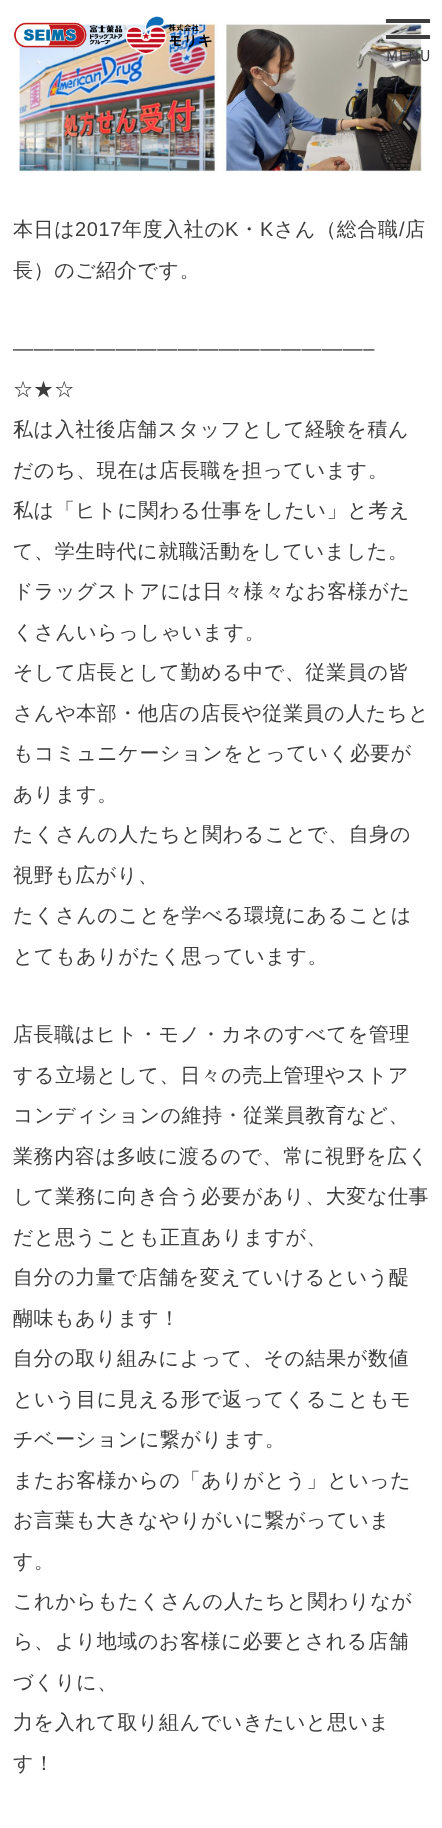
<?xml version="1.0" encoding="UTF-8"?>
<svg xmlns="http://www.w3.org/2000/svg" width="442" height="1828">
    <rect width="100%" height="100%" fill="#FFFFFF"/>
    <image x="18" y="20" width="404" height="152" href="img_02.png"/>
    <image x="13" y="16" width="199" height="39" href="img_01.png"/>
    <rect x="386" y="19" width="44" height="4" fill="#3D3D3D"/>
    <rect x="386" y="35" width="44" height="4" fill="#3D3D3D"/>
    <text x="386" y="61" font-family="Noto Sans JP" font-size="15" letter-spacing="0.6" fill="#3D3D3D">MENU</text>
    <text x="13" y="236" font-family="WenQuanYi Zen Hei" font-size="20" font-weight="500" letter-spacing="0.6" fill="#3D3D3D">本日は</text>
    <text x="75" y="236" font-family="Liberation Sans" font-size="20" letter-spacing="0.6" fill="#3D3D3D">2017</text>
    <text x="122" y="236" font-family="WenQuanYi Zen Hei" font-size="20" font-weight="500" letter-spacing="0.6" fill="#3D3D3D">年度入社の</text>
    <text x="225" y="236" font-family="Liberation Sans" font-size="20" letter-spacing="0.6" fill="#3D3D3D">K</text>
    <text x="239" y="236" font-family="WenQuanYi Zen Hei" font-size="20" font-weight="500" letter-spacing="0.6" fill="#3D3D3D">・</text>
    <text x="260" y="236" font-family="Liberation Sans" font-size="20" letter-spacing="0.6" fill="#3D3D3D">K</text>
    <text x="274" y="236" font-family="WenQuanYi Zen Hei" font-size="20" font-weight="500" letter-spacing="0.6" fill="#3D3D3D">さん（総合職</text>
    <text x="399" y="236" font-family="Liberation Sans" font-size="20" letter-spacing="0.6" fill="#3D3D3D">/</text>
    <text x="405" y="236" font-family="WenQuanYi Zen Hei" font-size="20" font-weight="500" letter-spacing="0.6" fill="#3D3D3D">店</text>
    <text x="13" y="277" font-family="WenQuanYi Zen Hei" font-size="20" font-weight="500" letter-spacing="0.6" fill="#3D3D3D">長）のご紹介です。</text>
    <text x="13" y="355" font-family="Liberation Sans" font-size="20" letter-spacing="0.6" fill="#3D3D3D">—————————————————–</text>
    <text x="13" y="396" font-family="WenQuanYi Zen Hei" font-size="20" font-weight="500" letter-spacing="0.6" fill="#3D3D3D">☆★☆</text>
    <text x="13" y="436" font-family="WenQuanYi Zen Hei" font-size="20" font-weight="500" letter-spacing="0.6" fill="#3D3D3D">私は入社後店舗スタッフとして経験を積ん</text>
    <text x="13" y="477" font-family="WenQuanYi Zen Hei" font-size="20" font-weight="500" letter-spacing="0.6" fill="#3D3D3D">だのち、現在は店長職を担っています。</text>
    <text x="13" y="517" font-family="WenQuanYi Zen Hei" font-size="20" font-weight="500" letter-spacing="0.6" fill="#3D3D3D">私は「ヒトに関わる仕事をしたい」と考え</text>
    <text x="13" y="558" font-family="WenQuanYi Zen Hei" font-size="20" font-weight="500" letter-spacing="0.6" fill="#3D3D3D">て、学生時代に就職活動をしていました。</text>
    <text x="13" y="598" font-family="WenQuanYi Zen Hei" font-size="20" font-weight="500" letter-spacing="0.6" fill="#3D3D3D">ドラッグストアには日々様々なお客様がた</text>
    <text x="13" y="639" font-family="WenQuanYi Zen Hei" font-size="20" font-weight="500" letter-spacing="0.6" fill="#3D3D3D">くさんいらっしゃいます。</text>
    <text x="13" y="679" font-family="WenQuanYi Zen Hei" font-size="20" font-weight="500" letter-spacing="0.6" fill="#3D3D3D">そして店長として勤める中で、従業員の皆</text>
    <text x="13" y="720" font-family="WenQuanYi Zen Hei" font-size="20" font-weight="500" letter-spacing="0.6" fill="#3D3D3D">さんや本部・他店の店長や従業員の人たちと</text>
    <text x="13" y="760" font-family="WenQuanYi Zen Hei" font-size="20" font-weight="500" letter-spacing="0.6" fill="#3D3D3D">もコミュニケーションをとっていく必要が</text>
    <text x="13" y="801" font-family="WenQuanYi Zen Hei" font-size="20" font-weight="500" letter-spacing="0.6" fill="#3D3D3D">あります。</text>
    <text x="13" y="841" font-family="WenQuanYi Zen Hei" font-size="20" font-weight="500" letter-spacing="0.6" fill="#3D3D3D">たくさんの人たちと関わることで、自身の</text>
    <text x="13" y="882" font-family="WenQuanYi Zen Hei" font-size="20" font-weight="500" letter-spacing="0.6" fill="#3D3D3D">視野も広がり、</text>
    <text x="13" y="922" font-family="WenQuanYi Zen Hei" font-size="20" font-weight="500" letter-spacing="0.6" fill="#3D3D3D">たくさんのことを学べる環境にあることは</text>
    <text x="13" y="963" font-family="WenQuanYi Zen Hei" font-size="20" font-weight="500" letter-spacing="0.6" fill="#3D3D3D">とてもありがたく思っています。</text>
    <text x="13" y="1041" font-family="WenQuanYi Zen Hei" font-size="20" font-weight="500" letter-spacing="0.6" fill="#3D3D3D">店長職はヒト・モノ・カネのすべてを管理</text>
    <text x="13" y="1082" font-family="WenQuanYi Zen Hei" font-size="20" font-weight="500" letter-spacing="0.6" fill="#3D3D3D">する立場として、日々の売上管理やストア</text>
    <text x="13" y="1122" font-family="WenQuanYi Zen Hei" font-size="20" font-weight="500" letter-spacing="0.6" fill="#3D3D3D">コンディションの維持・従業員教育など、</text>
    <text x="13" y="1163" font-family="WenQuanYi Zen Hei" font-size="20" font-weight="500" letter-spacing="0.6" fill="#3D3D3D">業務内容は多岐に渡るので、常に視野を広く</text>
    <text x="13" y="1203" font-family="WenQuanYi Zen Hei" font-size="20" font-weight="500" letter-spacing="0.6" fill="#3D3D3D">して業務に向き合う必要があり、大変な仕事</text>
    <text x="13" y="1244" font-family="WenQuanYi Zen Hei" font-size="20" font-weight="500" letter-spacing="0.6" fill="#3D3D3D">だと思うことも正直ありますが、</text>
    <text x="13" y="1284" font-family="WenQuanYi Zen Hei" font-size="20" font-weight="500" letter-spacing="0.6" fill="#3D3D3D">自分の力量で店舗を変えていけるという醍</text>
    <text x="13" y="1325" font-family="WenQuanYi Zen Hei" font-size="20" font-weight="500" letter-spacing="0.6" fill="#3D3D3D">醐味もあります！</text>
    <text x="13" y="1365" font-family="WenQuanYi Zen Hei" font-size="20" font-weight="500" letter-spacing="0.6" fill="#3D3D3D">自分の取り組みによって、その結果が数値</text>
    <text x="13" y="1406" font-family="WenQuanYi Zen Hei" font-size="20" font-weight="500" letter-spacing="0.6" fill="#3D3D3D">という目に見える形で返ってくることもモ</text>
    <text x="13" y="1446" font-family="WenQuanYi Zen Hei" font-size="20" font-weight="500" letter-spacing="0.6" fill="#3D3D3D">チベーションに繋がります。</text>
    <text x="13" y="1487" font-family="WenQuanYi Zen Hei" font-size="20" font-weight="500" letter-spacing="0.6" fill="#3D3D3D">またお客様からの「ありがとう」といった</text>
    <text x="13" y="1527" font-family="WenQuanYi Zen Hei" font-size="20" font-weight="500" letter-spacing="0.6" fill="#3D3D3D">お言葉も大きなやりがいに繋がっていま</text>
    <text x="13" y="1568" font-family="WenQuanYi Zen Hei" font-size="20" font-weight="500" letter-spacing="0.6" fill="#3D3D3D">す。</text>
    <text x="13" y="1608" font-family="WenQuanYi Zen Hei" font-size="20" font-weight="500" letter-spacing="0.6" fill="#3D3D3D">これからもたくさんの人たちと関わりなが</text>
    <text x="13" y="1648" font-family="WenQuanYi Zen Hei" font-size="20" font-weight="500" letter-spacing="0.6" fill="#3D3D3D">ら、より地域のお客様に必要とされる店舗</text>
    <text x="13" y="1689" font-family="WenQuanYi Zen Hei" font-size="20" font-weight="500" letter-spacing="0.6" fill="#3D3D3D">づくりに、</text>
    <text x="13" y="1729" font-family="WenQuanYi Zen Hei" font-size="20" font-weight="500" letter-spacing="0.6" fill="#3D3D3D">力を入れて取り組んでいきたいと思いま</text>
    <text x="13" y="1770" font-family="WenQuanYi Zen Hei" font-size="20" font-weight="500" letter-spacing="0.6" fill="#3D3D3D">す！</text>
</svg>
